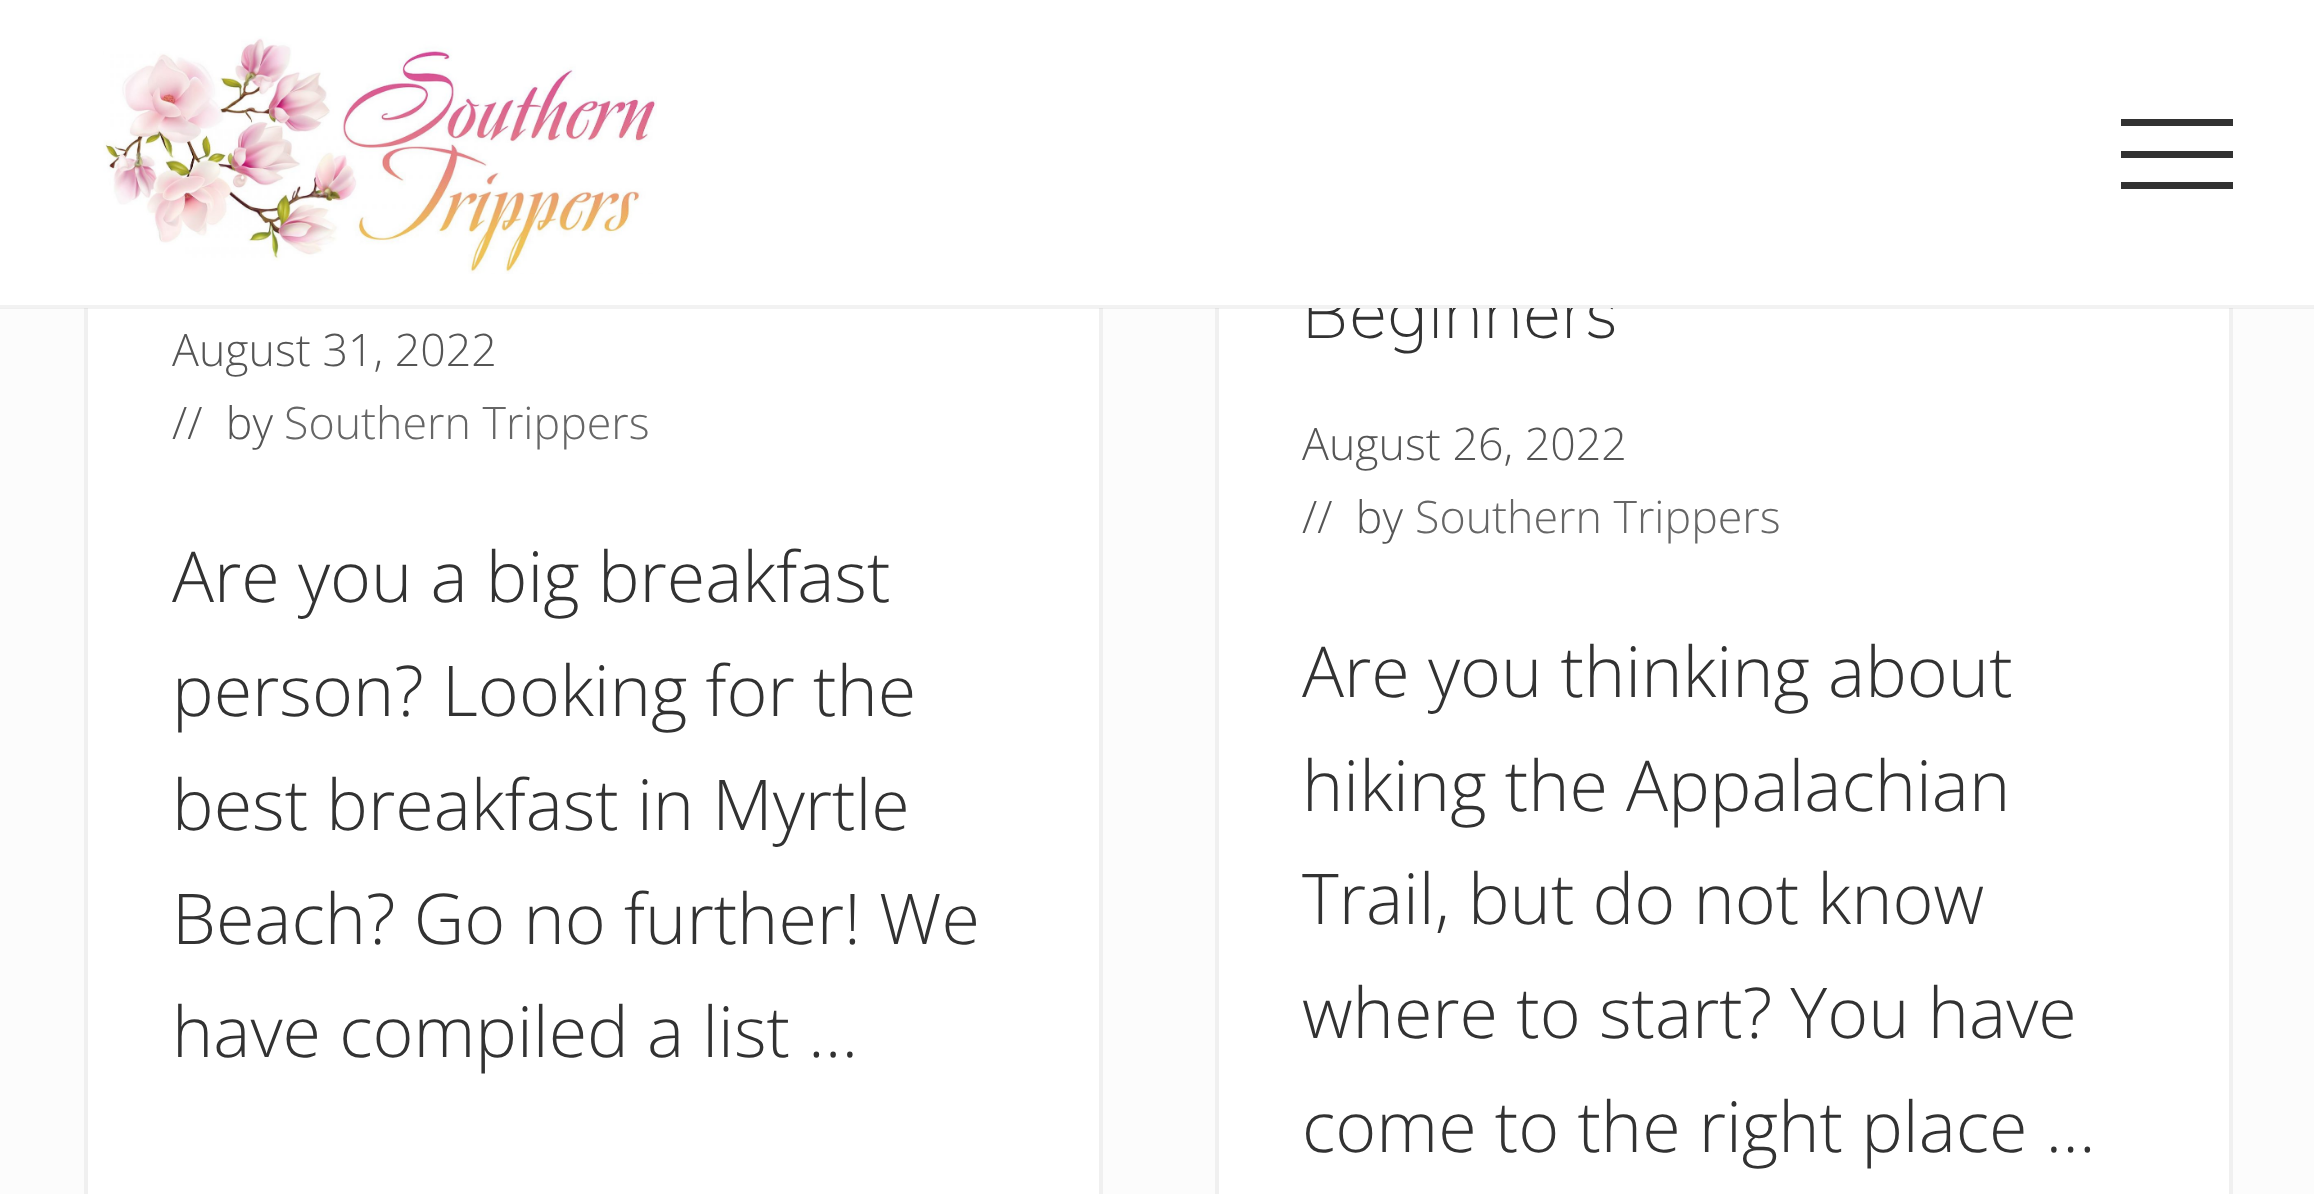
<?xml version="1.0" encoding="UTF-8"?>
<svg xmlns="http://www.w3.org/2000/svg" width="2314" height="1194">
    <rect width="100%" height="100%" fill="#FCFCFC"/>
    <rect x="88" y="308" width="1011" height="886" fill="#FFFFFF"/>
    <rect x="86" y="-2" width="1015" height="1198" fill="none" stroke="#F0F0F0" stroke-width="4"/>
    <rect x="1219" y="308" width="1010" height="886" fill="#FFFFFF"/>
    <rect x="1217" y="-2" width="1014" height="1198" fill="none" stroke="#F0F0F0" stroke-width="4"/>
    <text x="1302" y="338" font-family="Muli" font-size="70" font-weight="200" fill="#323232">Beginners</text>
    <rect x="0" y="0" width="2314" height="308" fill="#FFFFFF"/>
    <rect x="0" y="305" width="2314" height="4" fill="#000000" fill-opacity="0.05"/>
    <image x="103" y="36" width="554" height="238" href="img_01.png"/>
    <rect x="2121" y="151" width="112" height="7" fill="#323232"/>
    <rect x="2121" y="119" width="112" height="7" fill="#323232"/>
    <rect x="2121" y="182" width="112" height="7" fill="#323232"/>
    <text font-family="Open Sans" font-size="44.75" font-weight="300" fill="#555555" xml:space="preserve"><tspan x="172" y="366">August 31, 2022</tspan><tspan x="172" y="439">//  by</tspan></text>
    <text x="284" y="439" font-family="Open Sans" font-size="44.75" font-weight="300" fill="#666666">Southern Trippers</text>
    <text font-family="Open Sans" font-size="70" font-weight="300" fill="#323232">
        <tspan x="172" y="602">Are you a big breakfast</tspan>
        <tspan x="172" y="716">person? Looking for the</tspan>
        <tspan x="172" y="830">best breakfast in Myrtle</tspan>
        <tspan x="172" y="944">Beach? Go no further! We</tspan>
        <tspan x="172" y="1057">have compiled a list …</tspan>
    </text>
    <text font-family="Open Sans" font-size="44.75" font-weight="300" fill="#555555" xml:space="preserve"><tspan x="1302" y="460">August 26, 2022</tspan><tspan x="1302" y="533">//  by</tspan></text>
    <text x="1415" y="533" font-family="Open Sans" font-size="44.75" font-weight="300" fill="#666666">Southern Trippers</text>
    <text font-family="Open Sans" font-size="70" font-weight="300" fill="#323232">
        <tspan x="1302" y="697">Are you thinking about</tspan>
        <tspan x="1302" y="811">hiking the Appalachian</tspan>
        <tspan x="1302" y="924">Trail, but do not know</tspan>
        <tspan x="1302" y="1038">where to start? You have</tspan>
        <tspan x="1302" y="1152">come to the right place …</tspan>
    </text>
</svg>
